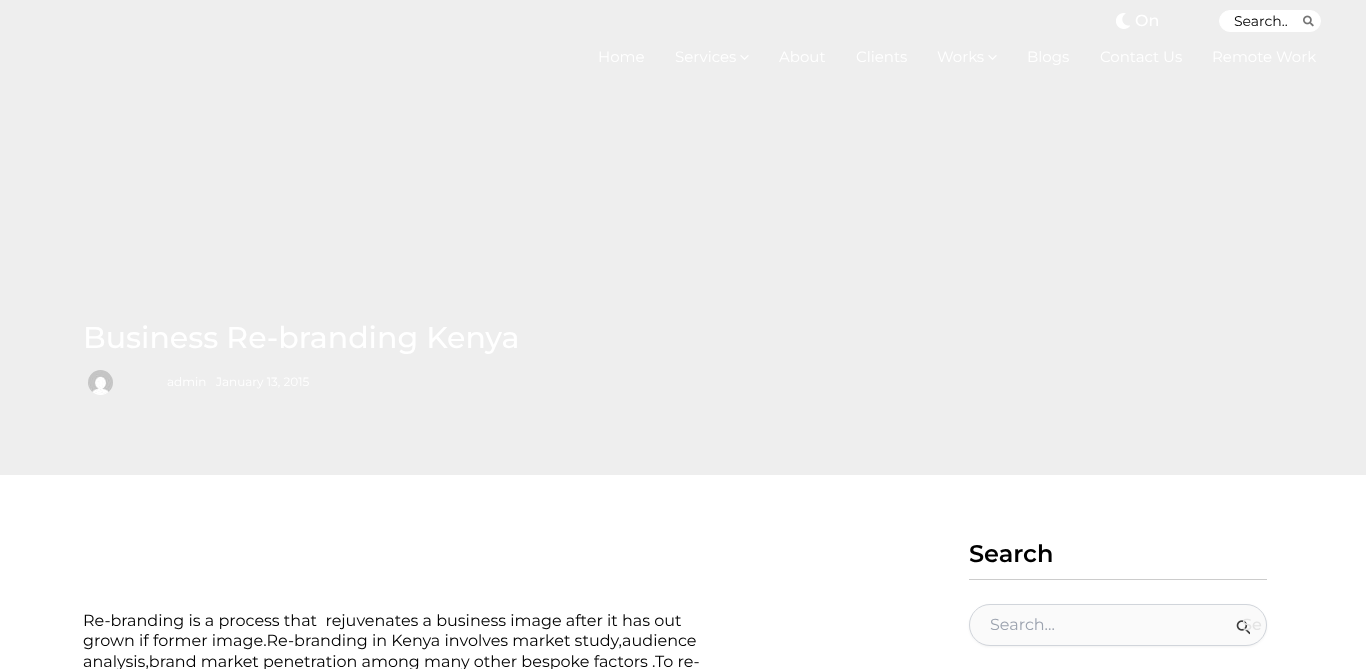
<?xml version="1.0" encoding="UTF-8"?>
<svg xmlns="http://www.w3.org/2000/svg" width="1366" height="669">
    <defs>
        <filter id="blur1" x="-50%" y="-200%" width="200%" height="500%"><feGaussianBlur stdDeviation="1"/></filter>
    </defs>
    <rect width="100%" height="100%" fill="#FFFFFF"/>
    <rect x="0" y="0" width="1366" height="475" fill="#EEEEEE"/>
    <image x="1116" y="13" width="14" height="16" href="img_01.png"/>
    <text x="1135" y="26" font-family="Montserrat" font-size="16" font-weight="500" fill="#FFFFFF">On</text>
    <rect x="1219.5" y="10.5" width="101" height="21" rx="10.5" fill="#FFFFFF" stroke="#FFFFFF"/>
    <text x="1234" y="26" font-family="Montserrat" font-size="14" font-weight="100" fill="#000000">Search..</text>
    <image x="1303" y="15" width="11" height="12" href="img_02.png"/>
    <text x="598" y="62" font-family="Montserrat" font-size="15" font-weight="100" fill="#FFFFFF">Home</text>
    <text x="675" y="62" font-family="Montserrat" font-size="15" font-weight="100" fill="#FFFFFF">Services</text>
    <image x="740" y="55" width="9" height="5" href="img_03.png"/>
    <text x="779" y="62" font-family="Montserrat" font-size="15" font-weight="100" fill="#FFFFFF">About</text>
    <text x="856" y="62" font-family="Montserrat" font-size="15" font-weight="100" fill="#FFFFFF">Clients</text>
    <text x="937" y="62" font-family="Montserrat" font-size="15" font-weight="100" fill="#FFFFFF">Works</text>
    <image x="988" y="55" width="9" height="5" href="img_03.png"/>
    <text x="1027" y="62" font-family="Montserrat" font-size="15" font-weight="100" fill="#FFFFFF">Blogs</text>
    <text x="1100" y="62" font-family="Montserrat" font-size="15" font-weight="100" fill="#FFFFFF">Contact Us</text>
    <text x="1212" y="62" font-family="Montserrat" font-size="15" font-weight="100" fill="#FFFFFF">Remote Work</text>
    <text x="83" y="348" font-family="Montserrat" font-size="30" font-weight="500" fill="#FFFFFF">Business Re-branding Kenya</text>
    <image x="88" y="370" width="25" height="25" href="img_04.png"/>
    <text x="167" y="386" font-family="Montserrat" font-size="12" font-weight="100" fill="#FFFFFF">admin</text>
    <text x="216" y="386" font-family="Montserrat" font-size="12" font-weight="100" fill="#FFFFFF">January 13, 2015</text>
    <rect x="969" y="579" width="298" height="1" fill="#CCCCCC"/>
    <text x="969" y="562" font-family="Montserrat" font-size="24" font-weight="600" fill="#000000">Search</text>
    <rect x="969" y="605" width="298" height="42" rx="21" fill="#000000" fill-opacity="0.05" filter="url(#blur1)"/>
    <rect x="969.5" y="604.5" width="297" height="41" rx="20.5" fill="#FAFAFA" stroke="#D1D5DB"/>
    <text x="990" y="630" font-family="Montserrat" font-size="16" font-weight="100" fill="#9CA3AF">Search...</text>
    <image x="1236" y="620" width="14" height="15" href="img_05.png"/>
    <text x="1242" y="630" font-family="Montserrat" font-size="16" font-weight="500" fill="#E3E3E3">Se</text>
    <text font-family="Montserrat" font-size="16" font-weight="100" fill="#000000" xml:space="preserve"><tspan x="83" y="626">Re-branding is a process that  rejuvenates a business image after it has out</tspan><tspan x="83" y="646">grown if former image.Re-branding in Kenya involves market study,audience</tspan><tspan x="83" y="667">analysis,brand market penetration among many other bespoke factors .To re-</tspan></text>
</svg>
